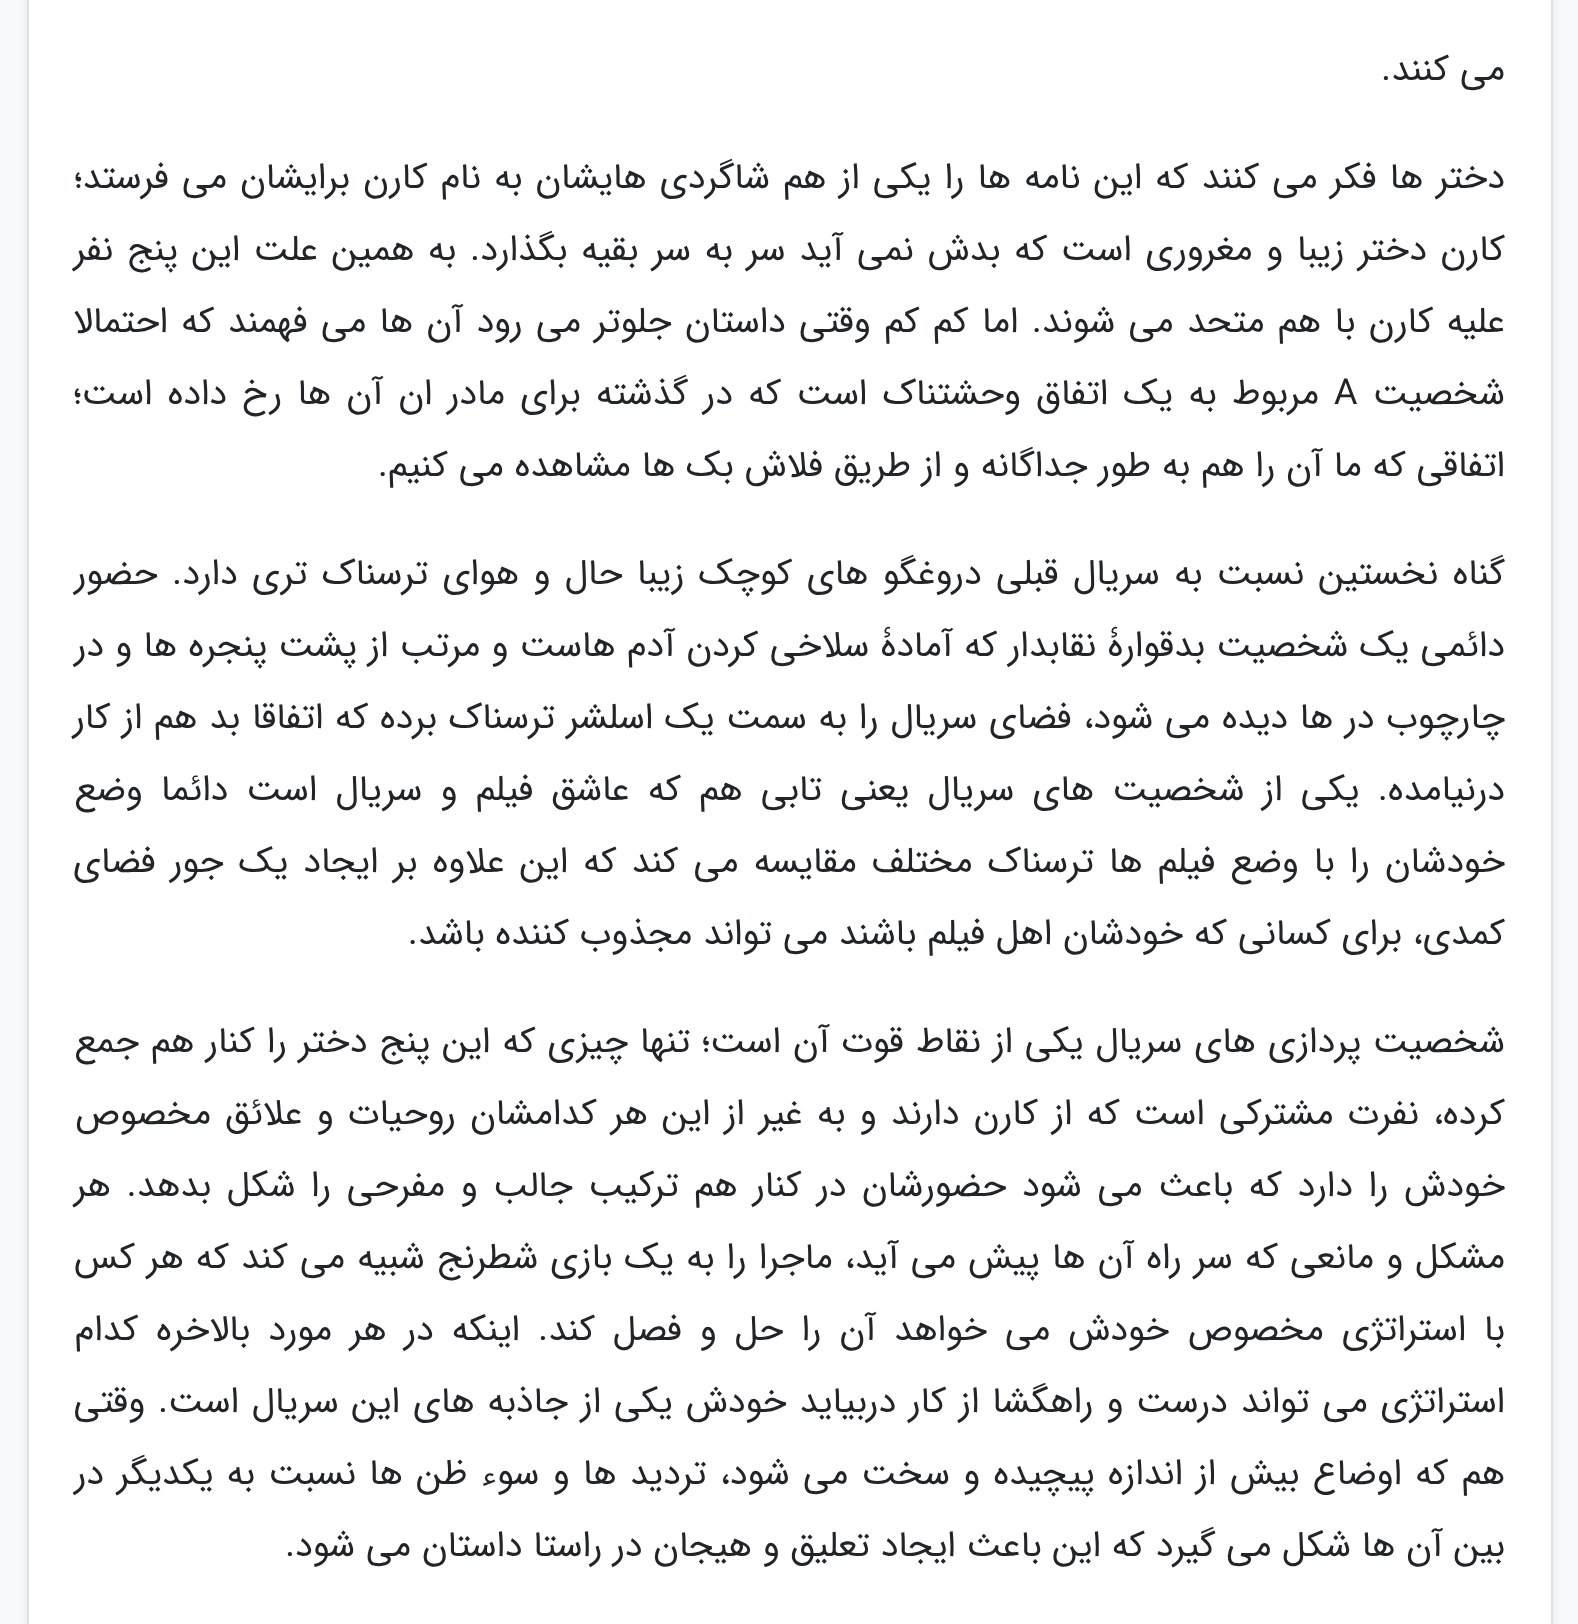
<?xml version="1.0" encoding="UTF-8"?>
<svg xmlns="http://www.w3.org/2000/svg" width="1578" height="1624">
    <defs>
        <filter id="blur1" x="-50%" y="-200%" width="200%" height="500%"><feGaussianBlur stdDeviation="4.5"/></filter>
    </defs>
    <rect width="100%" height="100%" fill="#F8F9FA"/>
    <rect x="27" y="-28" width="1526" height="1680" rx="14" fill="#000000" fill-opacity="0.07" filter="url(#blur1)"/>
    <rect x="28" y="-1" width="1524" height="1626" fill="#FFFFFF" stroke="#DEE2E6" stroke-width="2"/>
    <text x="1505" y="80" font-family="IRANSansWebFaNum" font-size="36" direction="rtl" fill="#212529">می کنند.</text>
    <text x="1505" y="188" word-spacing="2.25" font-family="IRANSansWebFaNum" font-size="36" direction="rtl" fill="#212529">دختر ها فکر می کنند که این نامه ها را یکی از هم شاگردی هایشان به نام کارن برایشان می فرستد؛</text>
    <text x="1505" y="260" word-spacing="2.9" font-family="IRANSansWebFaNum" font-size="36" direction="rtl" fill="#212529">کارن دختر زیبا و مغروری است که بدش نمی آید سر به سر بقیه بگذارد. به همین علت این پنج نفر</text>
    <text x="1505" y="332" word-spacing="2.5" font-family="IRANSansWebFaNum" font-size="36" direction="rtl" fill="#212529">علیه کارن با هم متحد می شوند. اما کم کم وقتی داستان جلوتر می رود آن ها می فهمند که احتمالا</text>
    <text x="1505" y="404" font-family="IRANSansWebFaNum" font-size="36" direction="rtl" fill="#212529">شخصیت</text>
    <text x="1334" y="404" font-family="IRANSansWebFaNum" font-size="36" fill="#212529">A</text>
    <text x="1319" y="404" word-spacing="4.5" font-family="IRANSansWebFaNum" font-size="36" direction="rtl" fill="#212529">مربوط به یک اتفاق وحشتناک است که در گذشته برای مادر ان آن ها رخ داده است؛</text>
    <text x="1505" y="476" font-family="IRANSansWebFaNum" font-size="36" direction="rtl" fill="#212529">اتفاقی که ما آن را هم به طور جداگانه و از طریق فلاش بک ها مشاهده می کنیم.</text>
    <text x="1505" y="584" word-spacing="3.5" font-family="IRANSansWebFaNum" font-size="36" direction="rtl" fill="#212529">گناه نخستین نسبت به سریال قبلی دروغگو های کوچک زیبا حال و هوای ترسناک تری دارد. حضور</text>
    <text x="1505" y="656" word-spacing="0.5" font-family="IRANSansWebFaNum" font-size="36" direction="rtl" fill="#212529">دائمی یک شخصیت بدقوارۀ نقابدار که آمادۀ سلاخی کردن آدم هاست و مرتب از پشت پنجره ها و در</text>
    <text x="1505" y="728" word-spacing="0.9" font-family="IRANSansWebFaNum" font-size="36" direction="rtl" fill="#212529">چارچوب در ها دیده می شود، فضای سریال را به سمت یک اسلشر ترسناک برده که اتفاقا بد هم از کار</text>
    <text x="1505" y="800" word-spacing="7.4" font-family="IRANSansWebFaNum" font-size="36" direction="rtl" fill="#212529">درنیامده. یکی از شخصیت های سریال یعنی تابی هم که عاشق فیلم و سریال است دائما وضع</text>
    <text x="1505" y="872" word-spacing="4.25" font-family="IRANSansWebFaNum" font-size="36" direction="rtl" fill="#212529">خودشان را با وضع فیلم ها ترسناک مختلف مقایسه می کند که این علاوه بر ایجاد یک جور فضای</text>
    <text x="1505" y="944" font-family="IRANSansWebFaNum" font-size="36" direction="rtl" fill="#212529">کمدی، برای کسانی که خودشان اهل فیلم باشند می تواند مجذوب کننده باشد.</text>
    <text x="1505" y="1052" word-spacing="1.1" font-family="IRANSansWebFaNum" font-size="36" direction="rtl" fill="#212529">شخصیت پردازی های سریال یکی از نقاط قوت آن است؛ تنها چیزی که این پنج دختر را کنار هم جمع</text>
    <text x="1505" y="1124" word-spacing="3.4" font-family="IRANSansWebFaNum" font-size="36" direction="rtl" fill="#212529">کرده، نفرت مشترکی است که از کارن دارند و به غیر از این هر کدامشان روحیات و علائق مخصوص</text>
    <text x="1505" y="1196" word-spacing="4.75" font-family="IRANSansWebFaNum" font-size="36" direction="rtl" fill="#212529">خودش را دارد که باعث می شود حضورشان در کنار هم ترکیب جالب و مفرحی را شکل بدهد. هر</text>
    <text x="1505" y="1268" word-spacing="1.25" font-family="IRANSansWebFaNum" font-size="36" direction="rtl" fill="#212529">مشکل و مانعی که سر راه آن ها پیش می آید، ماجرا را به یک بازی شطرنج شبیه می کند که هر کس</text>
    <text x="1505" y="1340" word-spacing="7.1" font-family="IRANSansWebFaNum" font-size="36" direction="rtl" fill="#212529">با استراتژی مخصوص خودش می خواهد آن را حل و فصل کند. اینکه در هر مورد بالاخره کدام</text>
    <text x="1505" y="1412" word-spacing="2.1" font-family="IRANSansWebFaNum" font-size="36" direction="rtl" fill="#212529">استراتژی می تواند درست و راهگشا از کار دربیاید خودش یکی از جاذبه های این سریال است. وقتی</text>
    <text x="1505" y="1484" word-spacing="2.5" font-family="IRANSansWebFaNum" font-size="36" direction="rtl" fill="#212529">هم که اوضاع بیش از اندازه پیچیده و سخت می شود، تردید ها و سوء ظن ها نسبت به یکدیگر در</text>
    <text x="1505" y="1556" font-family="IRANSansWebFaNum" font-size="36" direction="rtl" fill="#212529">بین آن ها شکل می گیرد که این باعث ایجاد تعلیق و هیجان در راستا داستان می شود.</text>
</svg>
